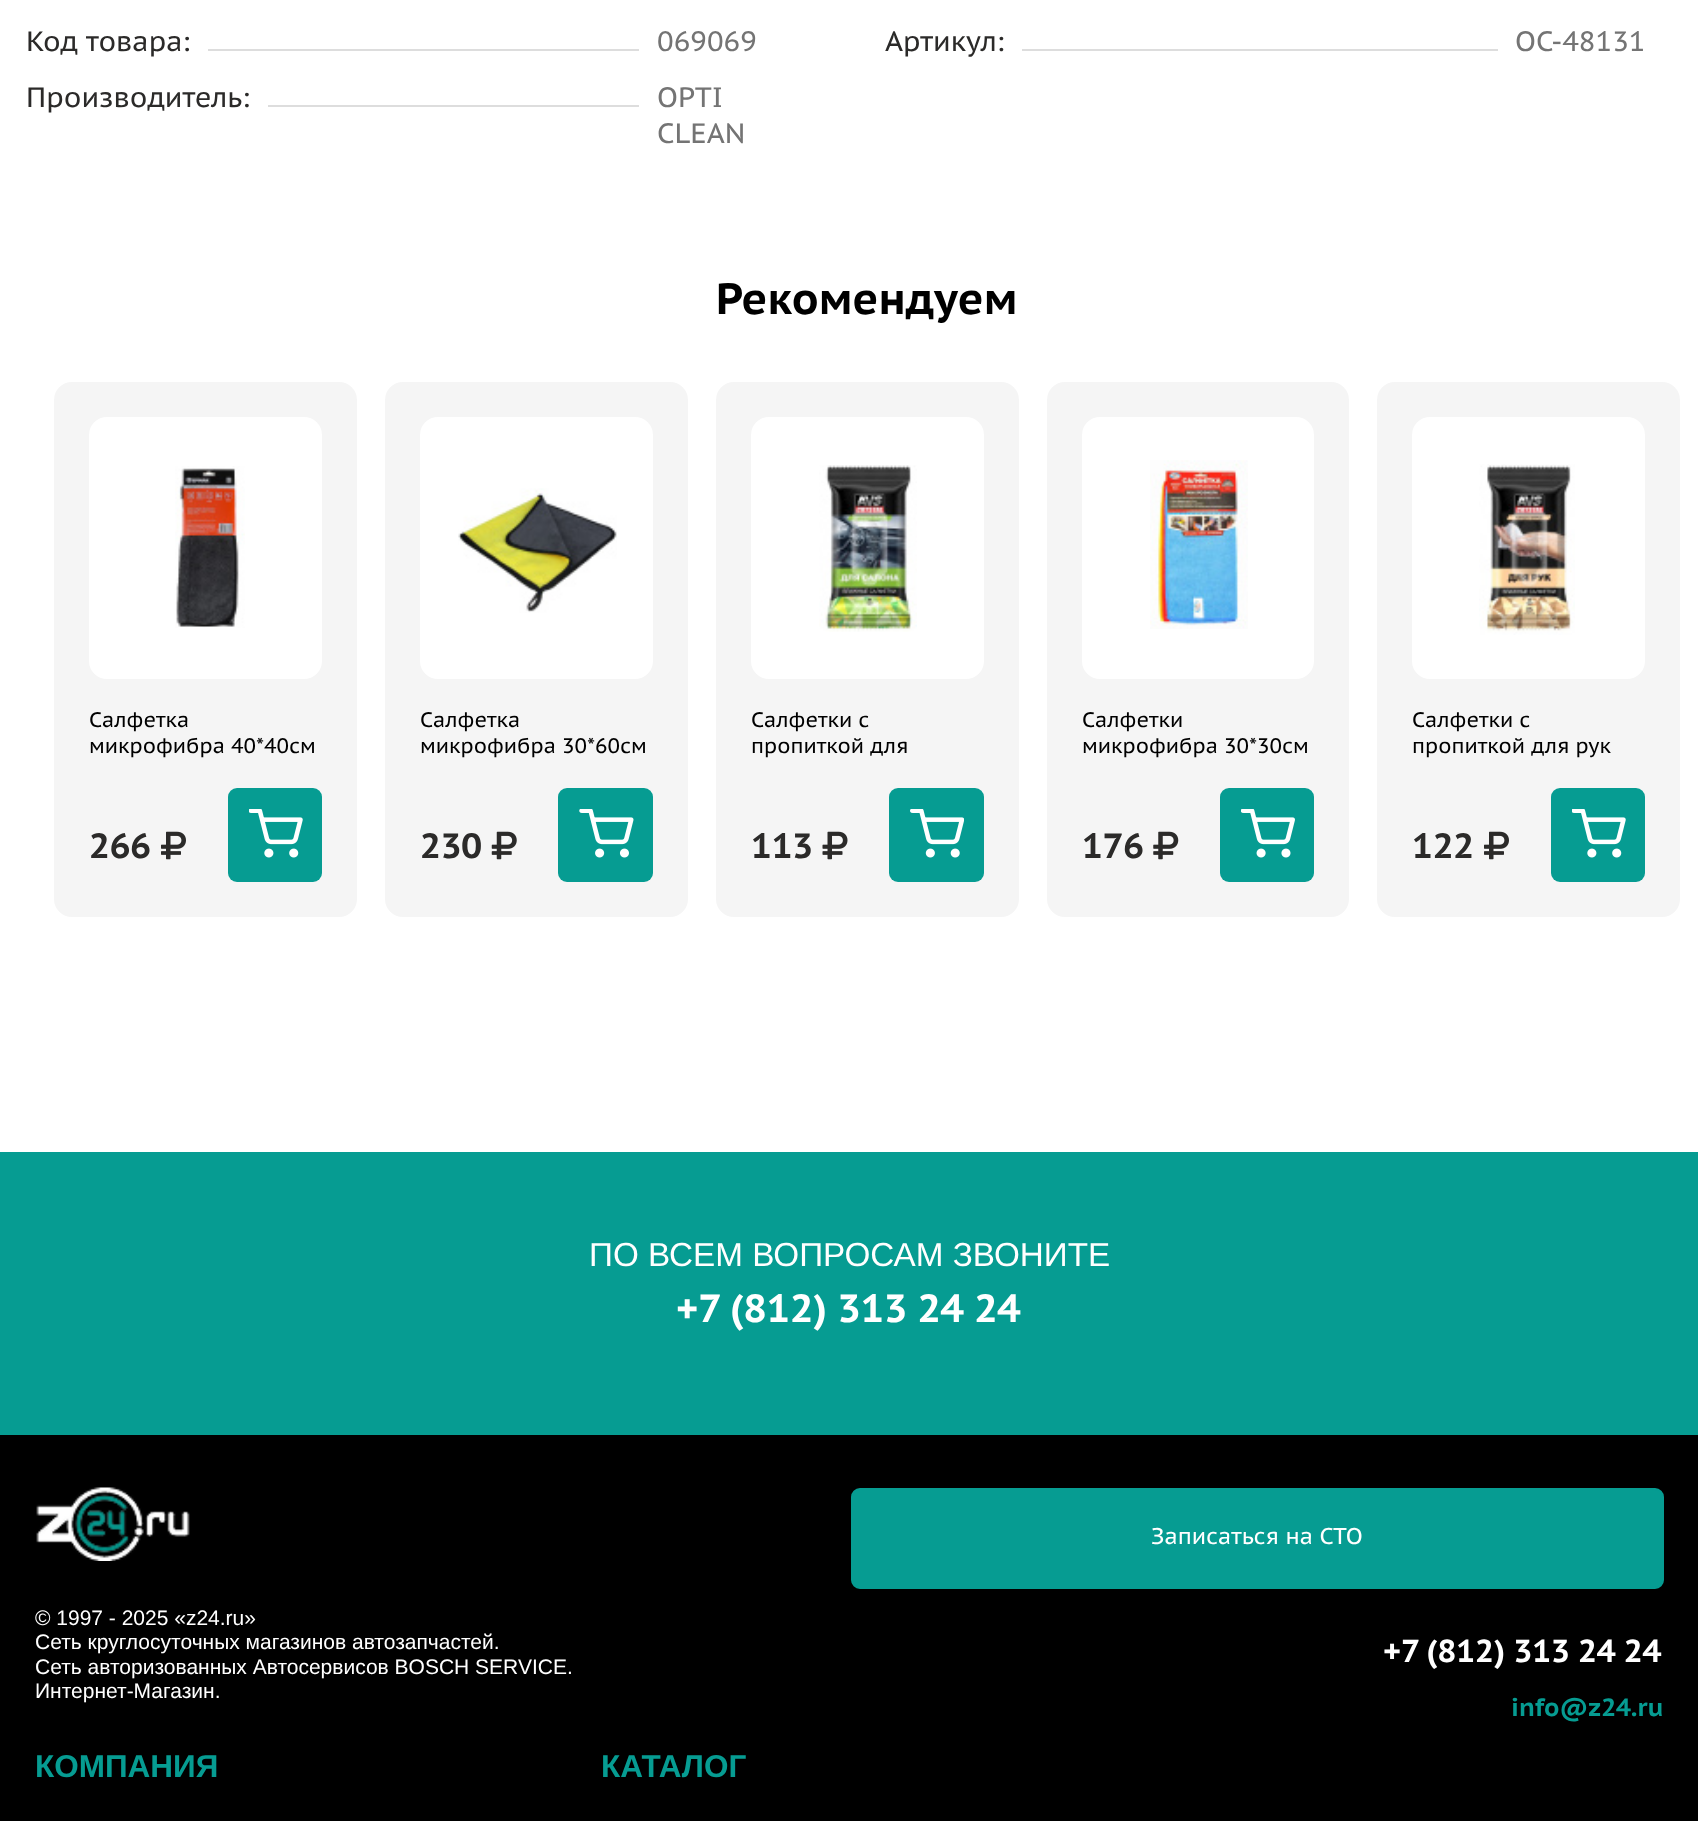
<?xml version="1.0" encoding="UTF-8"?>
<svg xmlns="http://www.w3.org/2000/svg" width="1698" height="1821">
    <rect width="100%" height="100%" fill="#FFFFFF"/>
    <text x="26" y="51" font-family="PT Sans Caption" font-size="28" fill="#2B2A29">Код товара:</text>
    <rect x="208" y="49" width="431" height="2" fill="#DDDDDD"/>
    <text x="657" y="51" font-family="PT Sans Caption" font-size="28" fill="#747474">069069</text>
    <text x="885" y="51" font-family="PT Sans Caption" font-size="28" fill="#2B2A29">Артикул:</text>
    <rect x="1022" y="49" width="476" height="2" fill="#DDDDDD"/>
    <text x="1515" y="51" font-family="PT Sans Caption" font-size="28" fill="#747474">OC-48131</text>
    <text x="26" y="107" font-family="PT Sans Caption" font-size="28" fill="#2B2A29">Производитель:</text>
    <rect x="268" y="105" width="371" height="2" fill="#DDDDDD"/>
    <text font-family="PT Sans Caption" font-size="28" fill="#747474">
        <tspan x="657" y="107">OPTI</tspan>
        <tspan x="657" y="143">CLEAN</tspan>
    </text>
    <text x="716" y="314" font-family="PT Sans Caption" font-size="43.75" font-weight="700" fill="#000000">Рекомендуем</text>
    <rect x="54" y="382" width="303" height="535" rx="18" fill="#F5F5F5"/>
    <rect x="89" y="417" width="233" height="262" rx="18" fill="#FFFFFF"/>
    <image x="175" y="466" width="70" height="162" href="img_01.png"/>
    <text font-family="PT Sans Caption" font-size="21" fill="#000000">
        <tspan x="89" y="727">Салфетка</tspan>
        <tspan x="89" y="753">микрофибра 40*40см</tspan>
    </text>
    <text x="89" y="858" font-family="PT Sans Caption" font-size="35" font-weight="700" fill="#2B2A29">266</text>
    <image x="161" y="831" width="25" height="29" href="img_02.png"/>
    <rect x="228" y="788" width="94" height="94" rx="9" fill="#069C92"/>
    <image x="249" y="809" width="54" height="49" href="img_03.png"/>
    <rect x="385" y="382" width="303" height="535" rx="18" fill="#F5F5F5"/>
    <rect x="420" y="417" width="233" height="262" rx="18" fill="#FFFFFF"/>
    <image x="458" y="488" width="159" height="125" href="img_04.png"/>
    <text font-family="PT Sans Caption" font-size="21" fill="#000000">
        <tspan x="420" y="727">Салфетка</tspan>
        <tspan x="420" y="753">микрофибра 30*60см</tspan>
    </text>
    <text x="420" y="858" font-family="PT Sans Caption" font-size="35" font-weight="700" fill="#2B2A29">230</text>
    <image x="491" y="831" width="26" height="29" href="img_05.png"/>
    <rect x="558" y="788" width="95" height="94" rx="9" fill="#069C92"/>
    <image x="579" y="809" width="55" height="49" href="img_06.png"/>
    <rect x="716" y="382" width="303" height="535" rx="18" fill="#F5F5F5"/>
    <rect x="751" y="417" width="233" height="262" rx="18" fill="#FFFFFF"/>
    <image x="819" y="465" width="98" height="167" href="img_07.png"/>
    <text font-family="PT Sans Caption" font-size="21" fill="#000000">
        <tspan x="751" y="727">Салфетки с</tspan>
        <tspan x="751" y="753">пропиткой для</tspan>
    </text>
    <text x="751" y="858" font-family="PT Sans Caption" font-size="35" font-weight="700" fill="#2B2A29">113</text>
    <image x="822" y="831" width="26" height="29" href="img_08.png"/>
    <rect x="889" y="788" width="95" height="94" rx="9" fill="#069C92"/>
    <image x="910" y="809" width="54" height="49" href="img_09.png"/>
    <rect x="1047" y="382" width="302" height="535" rx="18" fill="#F5F5F5"/>
    <rect x="1082" y="417" width="232" height="262" rx="18" fill="#FFFFFF"/>
    <image x="1150" y="460" width="98" height="169" href="img_10.png"/>
    <text font-family="PT Sans Caption" font-size="21" fill="#000000">
        <tspan x="1082" y="727">Салфетки</tspan>
        <tspan x="1082" y="753">микрофибра 30*30см</tspan>
    </text>
    <text x="1082" y="858" font-family="PT Sans Caption" font-size="35" font-weight="700" fill="#2B2A29">176</text>
    <image x="1153" y="831" width="26" height="29" href="img_11.png"/>
    <rect x="1220" y="788" width="94" height="94" rx="9" fill="#069C92"/>
    <image x="1241" y="809" width="54" height="49" href="img_12.png"/>
    <rect x="1377" y="382" width="303" height="535" rx="18" fill="#F5F5F5"/>
    <rect x="1412" y="417" width="233" height="262" rx="18" fill="#FFFFFF"/>
    <image x="1479" y="464" width="96" height="171" href="img_13.png"/>
    <text font-family="PT Sans Caption" font-size="21" fill="#000000">
        <tspan x="1412" y="727">Салфетки с</tspan>
        <tspan x="1412" y="753">пропиткой для рук</tspan>
    </text>
    <text x="1412" y="858" font-family="PT Sans Caption" font-size="35" font-weight="700" fill="#2B2A29">122</text>
    <image x="1484" y="831" width="25" height="29" href="img_02.png"/>
    <rect x="1551" y="788" width="94" height="94" rx="9" fill="#069C92"/>
    <image x="1572" y="809" width="54" height="49" href="img_03.png"/>
    <rect x="0" y="1152" width="1698" height="283" fill="#069C92"/>
    <text x="589" y="1266" font-family="Liberation Sans" font-size="33.25" fill="#FFFFFF">ПО ВСЕМ ВОПРОСАМ ЗВОНИТЕ</text>
    <text x="676" y="1322" word-spacing="-0.5" font-family="PT Sans Caption" font-size="39.25" font-weight="700" fill="#FFFFFF">+7 (812) 313 24 24</text>
    <rect x="0" y="1435" width="1698" height="386" fill="#000000"/>
    <image x="36" y="1487" width="154" height="74" href="img_14.png"/>
    <text font-family="Liberation Sans" font-size="21" fill="#FFFFFF">
        <tspan x="35" y="1625">© 1997 - 2025 «z24.ru»</tspan>
        <tspan x="35" y="1649">Cеть круглосуточных магазинов автозапчастей.</tspan>
        <tspan x="35" y="1674">Сеть авторизованных Автосервисов BOSCH SERVICE.</tspan>
        <tspan x="35" y="1698">Интернет-Магазин.</tspan>
    </text>
    <rect x="852" y="1489" width="811" height="99" rx="8" fill="#069C92" stroke="#069C92" stroke-width="2"/>
    <text x="1151" y="1544" font-family="PT Sans Caption" font-size="22.75" fill="#FFFFFF">Записаться на СТО</text>
    <text x="1383" y="1662" word-spacing="-0.5" font-family="PT Sans Caption" font-size="31.75" font-weight="700" fill="#FFFFFF">+7 (812) 313 24 24</text>
    <text x="1511" y="1716" font-family="PT Sans Caption" font-size="25" font-weight="700" fill="#069C92">info@z24.ru</text>
    <text x="35" y="1777" font-family="Liberation Sans" font-size="31.5" font-weight="700" fill="#069C92">КОМПАНИЯ</text>
    <text x="601" y="1777" font-family="Liberation Sans" font-size="31.5" font-weight="700" fill="#069C92">КАТАЛОГ</text>
</svg>
